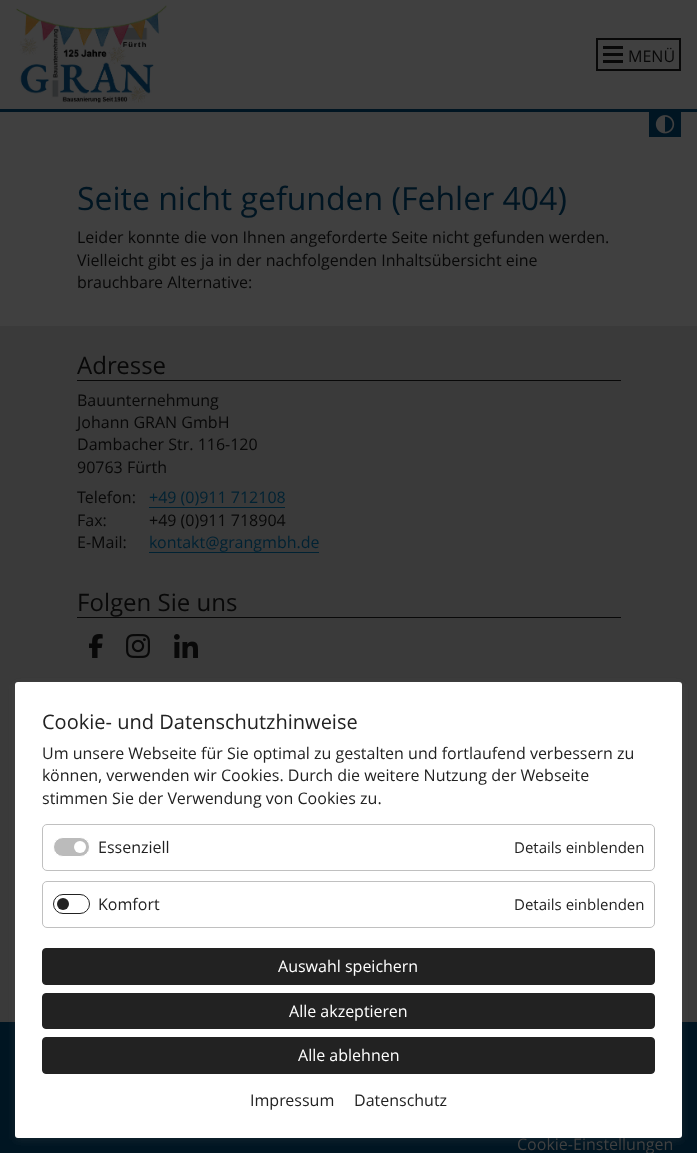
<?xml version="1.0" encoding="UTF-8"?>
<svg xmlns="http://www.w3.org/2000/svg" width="697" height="1153">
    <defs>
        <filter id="blur1" x="-50%" y="-200%" width="200%" height="500%"><feGaussianBlur stdDeviation="4"/></filter>
    </defs>
    <rect width="100%" height="100%" fill="#404040"/>
    <rect x="0" y="109" width="697" height="3" fill="#001522"/>
    <image x="16" y="5" width="151" height="98" href="img_01.png"/>
    <rect x="597" y="39" width="83" height="31" fill="none" stroke="#080808" stroke-width="2"/>
    <rect x="603" y="46" width="20" height="3" fill="#080808"/>
    <rect x="603" y="53" width="20" height="3" fill="#080808"/>
    <rect x="603" y="60" width="20" height="3" fill="#080808"/>
    <text x="628" y="62" font-family="Open Sans" font-size="16" fill="#080808">MENÜ</text>
    <rect x="649" y="112" width="32" height="25" fill="#001522"/>
    <image x="655" y="115" width="20" height="19" href="img_02.png"/>
    <text x="77" y="210" font-family="Open Sans" font-size="32" fill="#001522">Seite nicht gefunden (Fehler 404)</text>
    <text font-family="Open Sans" font-size="16" fill="#080808">
        <tspan x="77" y="243">Leider konnte die von Ihnen angeforderte Seite nicht gefunden werden.</tspan>
        <tspan x="77" y="266">Vielleicht gibt es ja in der nachfolgenden Inhaltsübersicht eine</tspan>
        <tspan x="77" y="288">brauchbare Alternative:</tspan>
    </text>
    <rect x="0" y="326" width="697" height="696" fill="#3A3A3A"/>
    <text x="77" y="374" font-family="Open Sans" font-size="24" fill="#080808">Adresse</text>
    <rect x="77" y="380" width="544" height="1" fill="#080808"/>
    <text font-family="Open Sans" font-size="16" fill="#080808">
        <tspan x="77" y="406">Bauunternehmung</tspan>
        <tspan x="77" y="428">Johann GRAN GmbH</tspan>
        <tspan x="77" y="450">Dambacher Str. 116-120</tspan>
        <tspan x="77" y="473">90763 Fürth</tspan>
        <tspan x="77" y="503">Telefon:</tspan>
    </text>
    <text x="149" y="503" font-family="Open Sans" font-size="16" fill="#002233">+49 (0)911 712108</text>
    <rect x="149" y="507" width="136" height="1" fill="#002233"/>
    <text x="77" y="526" font-family="Open Sans" font-size="16" fill="#080808">Fax:</text>
    <text x="149" y="526" font-family="Open Sans" font-size="16" fill="#080808">+49 (0)911 718904</text>
    <text x="77" y="548" font-family="Open Sans" font-size="16" fill="#080808">E-Mail:</text>
    <text x="149" y="548" font-family="Open Sans" font-size="16" fill="#002233">kontakt@grangmbh.de</text>
    <rect x="149" y="552" width="170" height="1" fill="#002233"/>
    <text x="77" y="611" font-family="Open Sans" font-size="24" fill="#080808">Folgen Sie uns</text>
    <rect x="77" y="617" width="544" height="1" fill="#080808"/>
    <image x="89" y="634" width="14" height="24" href="img_03.png"/>
    <image x="126" y="634" width="24" height="24" href="img_04.png"/>
    <image x="174" y="634" width="24" height="24" href="img_05.png"/>
    <rect x="0" y="1022" width="697" height="131" fill="#001522"/>
    <text x="517" y="1150" font-family="Open Sans" font-size="16" fill="#404040">Cookie-Einstellungen</text>
    <rect x="15" y="684" width="667" height="456" rx="3" fill="#636363" fill-opacity="0.2" filter="url(#blur1)"/>
    <rect x="15" y="682" width="667" height="456" rx="3" fill="#FFFFFF"/>
    <text x="42" y="729" font-family="Open Sans" font-size="20" fill="#222222">Cookie- und Datenschutzhinweise</text>
    <text font-family="Open Sans" font-size="16" fill="#222222">
        <tspan x="42" y="759">Um unsere Webseite für Sie optimal zu gestalten und fortlaufend verbessern zu</tspan>
        <tspan x="42" y="781">können, verwenden wir Cookies. Durch die weitere Nutzung der Webseite</tspan>
        <tspan x="42" y="804">stimmen Sie der Verwendung von Cookies zu.</tspan>
    </text>
    <rect x="42.5" y="824.5" width="612" height="46" rx="4.5" fill="none" stroke="#C0C0C0"/>
    <rect x="53.5" y="837.5" width="36" height="19" rx="9.5" fill="#BBBBBB" stroke="#FFFFFF"/>
    <text x="98" y="853" font-family="Open Sans" font-size="16" fill="#222222">Essenziell</text>
    <circle cx="80" cy="847" r="6" fill="#FFFFFF"/>
    <text x="514" y="853" font-family="Open Sans" font-size="15" fill="#222222">Details einblenden</text>
    <rect x="42.5" y="881.5" width="612" height="46" rx="4.5" fill="none" stroke="#C0C0C0"/>
    <rect x="53.5" y="894.5" width="36" height="19" rx="9.5" fill="none" stroke="#222222"/>
    <text x="98" y="910" font-family="Open Sans" font-size="16" fill="#222222">Komfort</text>
    <circle cx="63" cy="904" r="6" fill="#222222"/>
    <text x="514" y="910" font-family="Open Sans" font-size="15" fill="#222222">Details einblenden</text>
    <rect x="42.5" y="948.5" width="612" height="36" rx="3.5" fill="#222222" stroke="#222222"/>
    <text x="278" y="972" font-family="Open Sans" font-size="16" fill="#FFFFFF">Auswahl speichern</text>
    <rect x="42.5" y="993.5" width="612" height="35" rx="3.5" fill="#222222" stroke="#222222"/>
    <text x="289" y="1017" font-family="Open Sans" font-size="16" fill="#FFFFFF">Alle akzeptieren</text>
    <rect x="42.5" y="1037.5" width="612" height="36" rx="3.5" fill="#222222" stroke="#222222"/>
    <text x="298" y="1061" font-family="Open Sans" font-size="16" fill="#FFFFFF">Alle ablehnen</text>
    <text x="250" y="1106" font-family="Open Sans" font-size="16" fill="#222222">Impressum</text>
    <text x="354" y="1106" font-family="Open Sans" font-size="16" fill="#222222">Datenschutz</text>
</svg>
